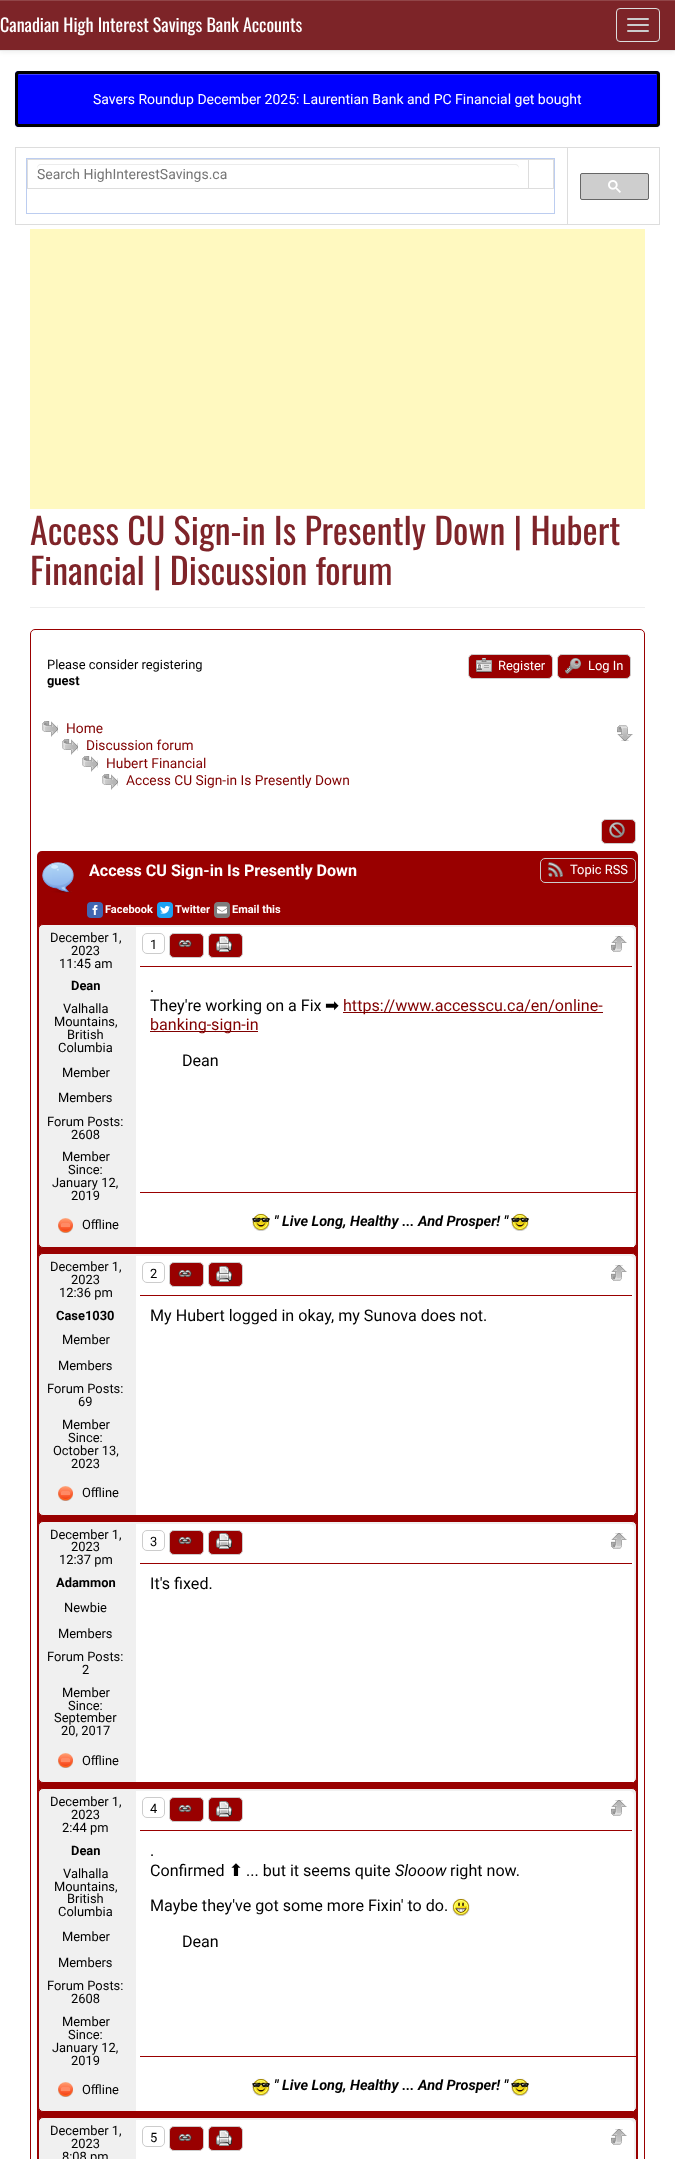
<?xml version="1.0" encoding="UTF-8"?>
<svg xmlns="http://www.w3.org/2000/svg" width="675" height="2159">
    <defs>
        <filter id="blur1" x="-50%" y="-200%" width="200%" height="500%"><feGaussianBlur stdDeviation="2.5"/></filter>
        <filter id="blur2" x="-50%" y="-200%" width="200%" height="500%"><feGaussianBlur stdDeviation="1"/></filter>
    </defs>
    <rect width="100%" height="100%" fill="#FFFFFF"/>
    <rect x="0" y="1" width="675" height="51" fill="#000000" fill-opacity="0.07" filter="url(#blur1)"/>
    <rect x="0" y="1" width="675" height="49" fill="#7D2428"/>
    <rect x="0" y="0" width="675" height="1" fill="#914548"/>
    <rect x="0" y="50" width="675" height="1" fill="#E7E7E7"/>
    <text x="0" y="32" font-family="Oswald" font-size="18" fill="#FFFFFF">Canadian High Interest Savings Bank Accounts</text>
    <rect x="616.5" y="8.5" width="43" height="33" rx="3.5" fill="none" stroke="#DDDDDD"/>
    <rect x="627" y="18" width="22" height="2" rx="1" fill="#CCCCCC"/>
    <rect x="627" y="24" width="22" height="2" rx="1" fill="#CCCCCC"/>
    <rect x="627" y="30" width="22" height="2" rx="1" fill="#CCCCCC"/>
    <rect x="15" y="72" width="645" height="56" rx="4" fill="#000000" fill-opacity="0.05" filter="url(#blur2)"/>
    <rect x="15" y="71" width="645" height="56" rx="4" fill="#0000FF"/>
    <path d="M 19 75 H 656 C 657 75 657 75 657 76 C 657 75 657 74 656 74 H 19 C 18 74 18 75 18 76 C 18 75 18 75 19 75 Z" fill="#4040FF"/>
    <rect x="16.5" y="72.5" width="642" height="53" rx="2.5" fill="none" stroke="#000000" stroke-width="3"/>
    <text x="93" y="104" font-family="Roboto" font-size="14" fill="#FFFFFF">Savers Roundup December 2025: Laurentian Bank and PC Financial get bought</text>
    <rect x="15" y="147" width="645" height="1" fill="#DDDDDD"/>
    <rect x="659" y="147" width="1" height="78" fill="#DDDDDD"/>
    <rect x="15" y="224" width="645" height="1" fill="#DDDDDD"/>
    <rect x="15" y="147" width="1" height="78" fill="#DDDDDD"/>
    <rect x="26.5" y="158.5" width="528" height="55" fill="none" stroke="#BCCDF0"/>
    <rect x="27" y="159" width="527" height="1" fill="#DDDDDD"/>
    <rect x="553" y="159" width="1" height="30" fill="#DDDDDD"/>
    <rect x="27" y="188" width="527" height="1" fill="#DDDDDD"/>
    <rect x="27" y="159" width="1" height="30" fill="#DDDDDD"/>
    <path d="M 41 165 H 515 C 517 165 519 167 519 169 C 519 166 518 164 515 164 H 41 C 38 164 37 166 37 169 C 37 167 39 165 41 165 Z" fill="#ECECEC"/>
    <text x="37" y="179" font-family="Roboto" font-size="14" fill="#757575">Search HighInterestSavings.ca</text>
    <rect x="528" y="159" width="1" height="30" fill="#DDDDDD"/>
    <rect x="567" y="147" width="1" height="78" fill="#DDDDDD"/>
    <rect x="580.5" y="173.5" width="68" height="26" rx="1.5" fill="#CECECE" stroke="#666666"/>
    <image x="608" y="180" width="13" height="13" href="img_01.png"/>
    <rect x="30" y="229" width="615" height="280" fill="#FFF9C0"/>
    <rect x="30" y="607" width="615" height="1" fill="#EEEEEE"/>
    <text font-family="Oswald" font-size="36" fill="#7F2429">
        <tspan x="30" y="545">Access CU Sign-in Is Presently Down | Hubert</tspan>
        <tspan x="30" y="585">Financial | Discussion forum</tspan>
    </text>
    <rect x="30.5" y="629.5" width="614" height="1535" rx="4.5" fill="none" stroke="#990000"/>
    <text x="47" y="669" font-family="Roboto" font-size="12.9" fill="#000000">Please consider registering</text>
    <text x="47" y="685" font-family="Roboto" font-size="12.9" font-weight="700" fill="#000000">guest</text>
    <rect x="468.5" y="654.5" width="84" height="24" rx="4.5" fill="#990000" stroke="#CCCCCC"/>
    <image x="476" y="658" width="16" height="15" href="img_02.png"/>
    <text x="498" y="670" font-family="Roboto" font-size="12.9" fill="#FFFFFF">Register</text>
    <rect x="557.5" y="654.5" width="73" height="24" rx="4.5" fill="#990000" stroke="#CCCCCC"/>
    <image x="565" y="658" width="16" height="16" href="img_03.png"/>
    <text x="588" y="670" font-family="Roboto" font-size="12.9" fill="#FFFFFF">Log In</text>
    <image x="42" y="721" width="16" height="16" href="img_04.png"/>
    <text x="66" y="733" font-family="Roboto" font-size="13.75" fill="#800000">Home</text>
    <image x="62" y="739" width="16" height="16" href="img_04.png"/>
    <text x="86" y="750" font-family="Roboto" font-size="13.75" fill="#800000">Discussion forum</text>
    <image x="82" y="756" width="16" height="16" href="img_04.png"/>
    <text x="106" y="768" font-family="Roboto" font-size="13.75" fill="#800000">Hubert Financial</text>
    <image x="102" y="774" width="16" height="16" href="img_04.png"/>
    <text x="126" y="785" font-family="Roboto" font-size="13.75" fill="#800000">Access CU Sign-in Is Presently Down</text>
    <image x="617" y="725" width="16" height="16" href="img_05.png"/>
    <rect x="601.5" y="819.5" width="34" height="24" rx="4.5" fill="#990000" stroke="#CCCCCC"/>
    <image x="609" y="822" width="16" height="16" href="img_06.png"/>
    <rect x="37" y="851" width="601" height="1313" rx="5" fill="#990000"/>
    <image x="42" y="862" width="32" height="31" href="img_07.png"/>
    <text x="89" y="876" font-family="Roboto" font-size="16.1" font-weight="700" fill="#FFFFFF">Access CU Sign-in Is Presently Down</text>
    <image x="87" y="902" width="16" height="16" href="img_08.png"/>
    <text x="105" y="913" font-family="Roboto" font-size="11" font-weight="700" fill="#FFFFFF">Facebook</text>
    <image x="157" y="902" width="16" height="16" href="img_09.png"/>
    <text x="175" y="913" font-family="Roboto" font-size="11" font-weight="700" fill="#FFFFFF">Twitter</text>
    <image x="214" y="902" width="16" height="16" href="img_10.png"/>
    <text x="232" y="913" font-family="Roboto" font-size="11" font-weight="700" fill="#FFFFFF">Email this</text>
    <rect x="540.5" y="858.5" width="95" height="24" rx="4.5" fill="none" stroke="#CCCCCC"/>
    <image x="548" y="862" width="15" height="15" href="img_11.png"/>
    <text x="570" y="874" font-family="Roboto" font-size="12.9" fill="#FFFFFF">Topic RSS</text>
    <rect x="38.5" y="924.5" width="598" height="323" rx="4.5" fill="#F0F0F0" stroke="#990000"/>
    <text x="50" y="942" font-family="Roboto" font-size="12.9" fill="#000000">December 1,</text>
    <text x="71" y="955" font-family="Roboto" font-size="12.9" fill="#000000">2023</text>
    <text x="59" y="968" font-family="Roboto" font-size="12.9" fill="#000000">11:45 am</text>
    <text x="71" y="990" font-family="Roboto" font-size="12.9" font-weight="700" fill="#000000">Dean</text>
    <text x="63" y="1013" font-family="Roboto" font-size="12.9" fill="#000000">Valhalla</text>
    <text x="54" y="1026" font-family="Roboto" font-size="12.9" fill="#000000">Mountains,</text>
    <text x="67" y="1039" font-family="Roboto" font-size="12.9" fill="#000000">British</text>
    <text x="58" y="1052" font-family="Roboto" font-size="12.9" fill="#000000">Columbia</text>
    <text x="62" y="1077" font-family="Roboto" font-size="12.9" fill="#000000">Member</text>
    <text x="58" y="1102" font-family="Roboto" font-size="12.9" fill="#000000">Members</text>
    <text x="47" y="1126" font-family="Roboto" font-size="12.9" fill="#000000">Forum Posts:</text>
    <text x="71" y="1139" font-family="Roboto" font-size="12.9" fill="#000000">2608</text>
    <text x="62" y="1161" font-family="Roboto" font-size="12.9" fill="#000000">Member</text>
    <text x="68" y="1174" font-family="Roboto" font-size="12.9" fill="#000000">Since:</text>
    <text x="52" y="1187" font-family="Roboto" font-size="12.9" fill="#000000">January 12,</text>
    <text x="71" y="1200" font-family="Roboto" font-size="12.9" fill="#000000">2019</text>
    <image x="58" y="1218" width="15" height="15" href="img_12.png"/>
    <text x="82" y="1229" font-family="Roboto" font-size="12.9" fill="#000000">Offline</text>
    <path d="M 136 927 H 629 C 632 927 634 929 634 932 V 1247 H 136 Z" fill="#FFFFFF"/>
    <rect x="142.5" y="933.5" width="22" height="20" rx="4.5" fill="none" stroke="#CCCCCC"/>
    <text x="150" y="949" font-family="Roboto" font-size="12.9" fill="#000000">1</text>
    <rect x="169.5" y="933.5" width="34" height="24" rx="4.5" fill="#990000" stroke="#CCCCCC"/>
    <image x="178" y="940" width="14" height="7" href="img_13.png"/>
    <rect x="208.5" y="933.5" width="34" height="24" rx="4.5" fill="#990000" stroke="#CCCCCC"/>
    <image x="216" y="936" width="16" height="16" href="img_14.png"/>
    <image x="611" y="936" width="16" height="16" href="img_15.png"/>
    <rect x="140" y="966" width="492" height="1" fill="#990000"/>
    <text font-family="Roboto" font-size="16.1" fill="#000000">
        <tspan x="150" y="992">.</tspan>
        <tspan x="150" y="1011">They're working on a Fix</tspan>
    </text>
    <text x="325" y="1011" font-family="DejaVu Sans" font-size="16.1" font-weight="700" fill="#000000">➡</text>
    <rect x="343" y="1012" width="260" height="1" fill="#800000"/>
    <text x="343" y="1011" font-family="Roboto" font-size="16.1" fill="#800000">https://www.accesscu.ca/en/online-</text>
    <rect x="150" y="1031" width="108" height="1" fill="#800000"/>
    <text x="150" y="1030" font-family="Roboto" font-size="16.1" fill="#800000">banking-sign-in</text>
    <text x="182" y="1066" font-family="Roboto" font-size="16.1" fill="#000000">Dean</text>
    <rect x="140" y="1192" width="496" height="1" fill="#990000"/>
    <image x="252" y="1213" width="18" height="18" href="img_16.png"/>
    <text x="274" y="1226" font-family="Roboto" font-size="14.5" font-weight="700" font-style="italic" fill="#000000">" Live Long, Healthy ... And Prosper! "</text>
    <image x="511" y="1213" width="18" height="18" href="img_16.png"/>
    <rect x="38.5" y="1253.5" width="598" height="262" rx="4.5" fill="#F0F0F0" stroke="#990000"/>
    <text x="50" y="1271" font-family="Roboto" font-size="12.9" fill="#000000">December 1,</text>
    <text x="71" y="1284" font-family="Roboto" font-size="12.9" fill="#000000">2023</text>
    <text x="59" y="1297" font-family="Roboto" font-size="12.9" fill="#000000">12:36 pm</text>
    <text x="56" y="1320" font-family="Roboto" font-size="12.9" font-weight="700" fill="#000000">Case1030</text>
    <text x="62" y="1344" font-family="Roboto" font-size="12.9" fill="#000000">Member</text>
    <text x="58" y="1370" font-family="Roboto" font-size="12.9" fill="#000000">Members</text>
    <text x="47" y="1393" font-family="Roboto" font-size="12.9" fill="#000000">Forum Posts:</text>
    <text x="78" y="1406" font-family="Roboto" font-size="12.9" fill="#000000">69</text>
    <text x="62" y="1429" font-family="Roboto" font-size="12.9" fill="#000000">Member</text>
    <text x="68" y="1442" font-family="Roboto" font-size="12.9" fill="#000000">Since:</text>
    <text x="53" y="1455" font-family="Roboto" font-size="12.9" fill="#000000">October 13,</text>
    <text x="71" y="1468" font-family="Roboto" font-size="12.9" fill="#000000">2023</text>
    <image x="58" y="1486" width="15" height="15" href="img_12.png"/>
    <text x="82" y="1497" font-family="Roboto" font-size="12.9" fill="#000000">Offline</text>
    <path d="M 136 1256 H 629 C 632 1256 634 1258 634 1261 V 1515 H 136 Z" fill="#FFFFFF"/>
    <rect x="142.5" y="1262.5" width="22" height="20" rx="4.5" fill="none" stroke="#CCCCCC"/>
    <text x="150" y="1278" font-family="Roboto" font-size="12.9" fill="#000000">2</text>
    <rect x="169.5" y="1262.5" width="34" height="24" rx="4.5" fill="#990000" stroke="#CCCCCC"/>
    <image x="178" y="1270" width="14" height="7" href="img_13.png"/>
    <rect x="208.5" y="1262.5" width="34" height="24" rx="4.5" fill="#990000" stroke="#CCCCCC"/>
    <image x="216" y="1266" width="16" height="16" href="img_14.png"/>
    <image x="611" y="1265" width="16" height="16" href="img_15.png"/>
    <rect x="140" y="1295" width="492" height="1" fill="#990000"/>
    <text x="150" y="1321" font-family="Roboto" font-size="16.1" fill="#000000">My Hubert logged in okay, my Sunova does not.</text>
    <rect x="38.5" y="1521.5" width="598" height="261" rx="4.5" fill="#F0F0F0" stroke="#990000"/>
    <text x="50" y="1539" font-family="Roboto" font-size="12.9" fill="#000000">December 1,</text>
    <text x="71" y="1551" font-family="Roboto" font-size="12.9" fill="#000000">2023</text>
    <text x="59" y="1564" font-family="Roboto" font-size="12.9" fill="#000000">12:37 pm</text>
    <text x="56" y="1587" font-family="Roboto" font-size="12.9" font-weight="700" fill="#000000">Adammon</text>
    <text x="64" y="1612" font-family="Roboto" font-size="12.9" fill="#000000">Newbie</text>
    <text x="58" y="1638" font-family="Roboto" font-size="12.9" fill="#000000">Members</text>
    <text x="47" y="1661" font-family="Roboto" font-size="12.9" fill="#000000">Forum Posts:</text>
    <text x="82" y="1674" font-family="Roboto" font-size="12.9" fill="#000000">2</text>
    <text x="62" y="1697" font-family="Roboto" font-size="12.9" fill="#000000">Member</text>
    <text x="68" y="1710" font-family="Roboto" font-size="12.9" fill="#000000">Since:</text>
    <text x="54" y="1722" font-family="Roboto" font-size="12.9" fill="#000000">September</text>
    <text x="61" y="1735" font-family="Roboto" font-size="12.9" fill="#000000">20, 2017</text>
    <image x="58" y="1753" width="15" height="15" href="img_12.png"/>
    <text x="82" y="1765" font-family="Roboto" font-size="12.9" fill="#000000">Offline</text>
    <path d="M 136 1524 H 629 C 632 1524 634 1526 634 1529 V 1782 H 136 Z" fill="#FFFFFF"/>
    <rect x="142.5" y="1530.5" width="22" height="20" rx="4.5" fill="none" stroke="#CCCCCC"/>
    <text x="150" y="1546" font-family="Roboto" font-size="12.9" fill="#000000">3</text>
    <rect x="169.5" y="1530.5" width="34" height="24" rx="4.5" fill="#990000" stroke="#CCCCCC"/>
    <image x="178" y="1537" width="14" height="7" href="img_13.png"/>
    <rect x="208.5" y="1530.5" width="34" height="24" rx="4.5" fill="#990000" stroke="#CCCCCC"/>
    <image x="216" y="1533" width="16" height="16" href="img_14.png"/>
    <image x="611" y="1533" width="16" height="16" href="img_15.png"/>
    <rect x="140" y="1563" width="492" height="1" fill="#990000"/>
    <text x="150" y="1589" font-family="Roboto" font-size="16.1" fill="#000000">It's fixed.</text>
    <rect x="38.5" y="1788.5" width="598" height="323" rx="4.5" fill="#F0F0F0" stroke="#990000"/>
    <text x="50" y="1806" font-family="Roboto" font-size="12.9" fill="#000000">December 1,</text>
    <text x="71" y="1819" font-family="Roboto" font-size="12.9" fill="#000000">2023</text>
    <text x="62" y="1832" font-family="Roboto" font-size="12.9" fill="#000000">2:44 pm</text>
    <text x="71" y="1855" font-family="Roboto" font-size="12.9" font-weight="700" fill="#000000">Dean</text>
    <text x="63" y="1878" font-family="Roboto" font-size="12.9" fill="#000000">Valhalla</text>
    <text x="54" y="1891" font-family="Roboto" font-size="12.9" fill="#000000">Mountains,</text>
    <text x="67" y="1903" font-family="Roboto" font-size="12.9" fill="#000000">British</text>
    <text x="58" y="1916" font-family="Roboto" font-size="12.9" fill="#000000">Columbia</text>
    <text x="62" y="1941" font-family="Roboto" font-size="12.9" fill="#000000">Member</text>
    <text x="58" y="1967" font-family="Roboto" font-size="12.9" fill="#000000">Members</text>
    <text x="47" y="1990" font-family="Roboto" font-size="12.9" fill="#000000">Forum Posts:</text>
    <text x="71" y="2003" font-family="Roboto" font-size="12.9" fill="#000000">2608</text>
    <text x="62" y="2026" font-family="Roboto" font-size="12.9" fill="#000000">Member</text>
    <text x="68" y="2039" font-family="Roboto" font-size="12.9" fill="#000000">Since:</text>
    <text x="52" y="2052" font-family="Roboto" font-size="12.9" fill="#000000">January 12,</text>
    <text x="71" y="2065" font-family="Roboto" font-size="12.9" fill="#000000">2019</text>
    <image x="58" y="2082" width="15" height="15" href="img_12.png"/>
    <text x="82" y="2094" font-family="Roboto" font-size="12.9" fill="#000000">Offline</text>
    <path d="M 136 1791 H 629 C 632 1791 634 1793 634 1796 V 2111 H 136 Z" fill="#FFFFFF"/>
    <rect x="142.5" y="1797.5" width="22" height="20" rx="4.5" fill="none" stroke="#CCCCCC"/>
    <text x="150" y="1813" font-family="Roboto" font-size="12.9" fill="#000000">4</text>
    <rect x="169.5" y="1797.5" width="34" height="24" rx="4.5" fill="#990000" stroke="#CCCCCC"/>
    <image x="178" y="1805" width="14" height="7" href="img_13.png"/>
    <rect x="208.5" y="1797.5" width="34" height="24" rx="4.5" fill="#990000" stroke="#CCCCCC"/>
    <image x="216" y="1801" width="16" height="16" href="img_14.png"/>
    <image x="611" y="1800" width="16" height="16" href="img_15.png"/>
    <rect x="140" y="1830" width="492" height="1" fill="#990000"/>
    <text font-family="Roboto" font-size="16.1" fill="#000000">
        <tspan x="150" y="1856">.</tspan>
        <tspan x="150" y="1876">Confirmed</tspan>
    </text>
    <text x="229" y="1876" font-family="DejaVu Sans" font-size="16.1" font-weight="700" fill="#000000">⬆</text>
    <text x="246" y="1876" font-family="Roboto" font-size="16.1" fill="#000000">... but it seems quite</text>
    <text x="395" y="1876" font-family="Roboto" font-size="16.1" font-style="italic" fill="#000000">Slooow</text>
    <text x="450" y="1876" font-family="Roboto" font-size="16.1" fill="#000000">right now.</text>
    <text x="150" y="1911" font-family="Roboto" font-size="16.1" fill="#000000">Maybe they've got some more Fixin' to do.</text>
    <image x="452" y="1898" width="18" height="18" href="img_17.png"/>
    <text x="182" y="1947" font-family="Roboto" font-size="16.1" fill="#000000">Dean</text>
    <rect x="140" y="2056" width="496" height="1" fill="#990000"/>
    <image x="252" y="2078" width="18" height="18" href="img_16.png"/>
    <text x="274" y="2090" font-family="Roboto" font-size="14.5" font-weight="700" font-style="italic" fill="#000000">" Live Long, Healthy ... And Prosper! "</text>
    <image x="511" y="2078" width="18" height="18" href="img_16.png"/>
    <rect x="38.5" y="2117.5" width="598" height="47" rx="4.5" fill="#F0F0F0" stroke="#990000"/>
    <text x="50" y="2135" font-family="Roboto" font-size="12.9" fill="#000000">December 1,</text>
    <text x="71" y="2148" font-family="Roboto" font-size="12.9" fill="#000000">2023</text>
    <text x="62" y="2161" font-family="Roboto" font-size="12.9" fill="#000000">8:08 pm</text>
    <path d="M 136 2120 H 629 C 632 2120 634 2122 634 2125 V 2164 H 136 Z" fill="#FFFFFF"/>
    <rect x="142.5" y="2126.5" width="22" height="20" rx="4.5" fill="none" stroke="#CCCCCC"/>
    <text x="150" y="2142" font-family="Roboto" font-size="12.9" fill="#000000">5</text>
    <rect x="169.5" y="2126.5" width="34" height="24" rx="4.5" fill="#990000" stroke="#CCCCCC"/>
    <image x="178" y="2134" width="14" height="7" href="img_13.png"/>
    <rect x="208.5" y="2126.5" width="34" height="24" rx="4.5" fill="#990000" stroke="#CCCCCC"/>
    <image x="216" y="2130" width="16" height="16" href="img_14.png"/>
    <image x="611" y="2129" width="16" height="16" href="img_15.png"/>
</svg>
